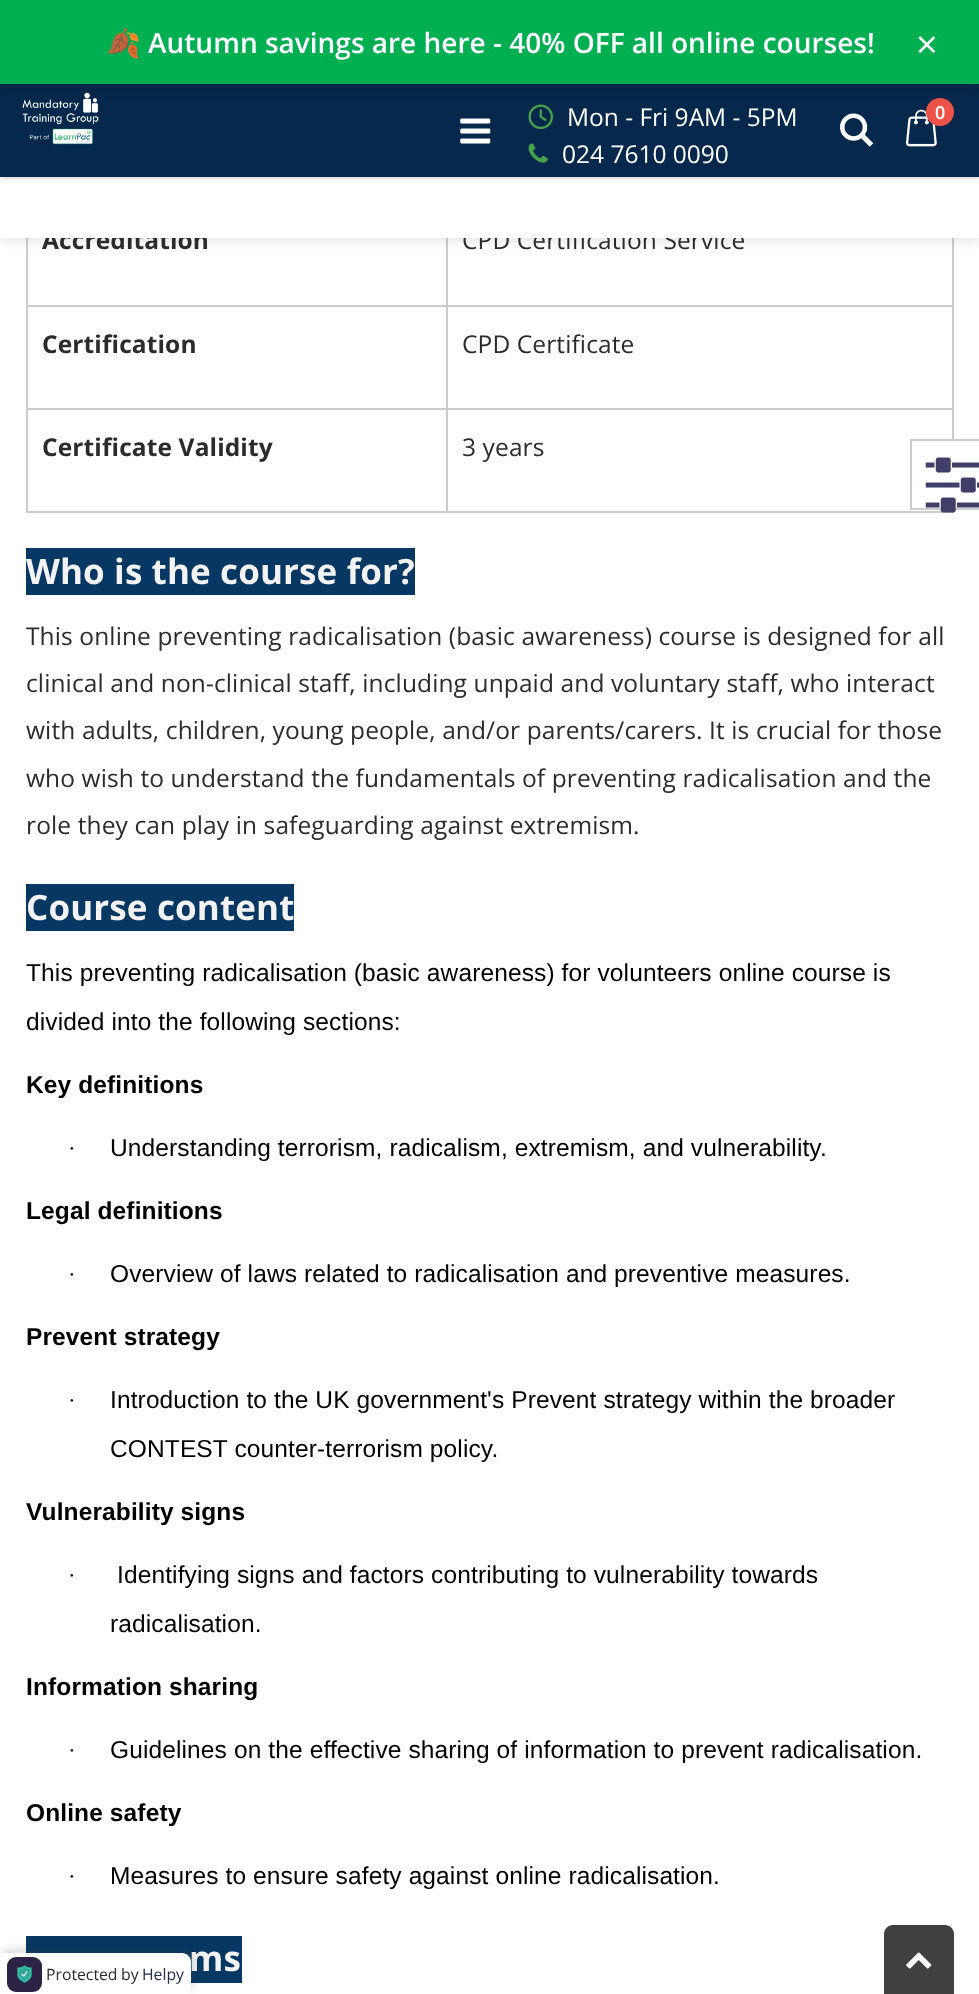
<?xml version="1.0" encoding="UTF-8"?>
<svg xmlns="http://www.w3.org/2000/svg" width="979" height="1994">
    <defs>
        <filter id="blur1" x="-50%" y="-200%" width="200%" height="500%"><feGaussianBlur stdDeviation="4.5"/></filter>
        <filter id="blur2" x="-50%" y="-200%" width="200%" height="500%"><feGaussianBlur stdDeviation="2.5"/></filter>
        <filter id="blur3" x="-50%" y="-200%" width="200%" height="500%"><feGaussianBlur stdDeviation="9"/></filter>
        <filter id="blur4" x="-50%" y="-200%" width="200%" height="500%"><feGaussianBlur stdDeviation="3.5"/></filter>
    </defs>
    <rect width="100%" height="100%" fill="#FFFFFF"/>
    <rect x="446" y="305" width="508" height="2" fill="#CCCCCC"/>
    <rect x="446" y="408" width="508" height="2" fill="#CCCCCC"/>
    <rect x="446" y="511" width="508" height="2" fill="#CCCCCC"/>
    <rect x="446" y="408" width="2" height="105" fill="#CCCCCC"/>
    <rect x="26" y="408" width="422" height="2" fill="#CCCCCC"/>
    <rect x="446" y="305" width="2" height="105" fill="#CCCCCC"/>
    <rect x="26" y="305" width="422" height="2" fill="#CCCCCC"/>
    <rect x="446" y="238" width="2" height="68" fill="#CCCCCC"/>
    <rect x="26" y="511" width="422" height="2" fill="#CCCCCC"/>
    <rect x="26" y="408" width="2" height="105" fill="#CCCCCC"/>
    <rect x="26" y="238" width="2" height="172" fill="#CCCCCC"/>
    <rect x="952" y="408" width="2" height="31" fill="#CCCCCC"/>
    <rect x="952" y="238" width="2" height="172" fill="#CCCCCC"/>
    <rect x="0" y="5" width="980" height="238" fill="#000000" fill-opacity="0.08" filter="url(#blur1)"/>
    <text x="42" y="249" font-family="Open Sans" font-size="24.5" font-weight="700" letter-spacing="0.12" fill="#2B2B2D">Accreditation</text>
    <text x="462" y="249" font-family="Open Sans" font-size="24.5" letter-spacing="0.12" fill="#2B2B2D">CPD Certification Service</text>
    <rect x="0" y="177" width="979" height="61" fill="#FFFFFF"/>
    <rect x="0" y="84" width="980" height="93" fill="#000000" fill-opacity="0.3" filter="url(#blur2)"/>
    <rect x="0" y="84" width="979" height="93" fill="#05284C"/>
    <image x="22" y="92" width="77" height="53" href="img_01.png"/>
    <image x="528" y="104" width="25" height="26" href="img_03.png"/>
    <image x="840" y="113" width="34" height="34" href="img_05.png"/>
    <image x="906" y="109" width="31" height="38" href="img_06.png"/>
    <circle cx="940" cy="112" r="14" fill="#ED5348"/>
    <rect x="0" y="4" width="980" height="84" fill="#000000" fill-opacity="0.1" filter="url(#blur3)"/>
    <rect x="0" y="0" width="979" height="84" fill="#00AF52"/>
    <text x="106" y="53" font-family="Noto Color Emoji" font-size="28" font-weight="700" fill="#FFFFFF">🍂</text>
    <text x="148" y="53" font-family="Open Sans" font-size="28" font-weight="600" fill="#FFFFFF">Autumn savings are here - 40% OFF all online courses!</text>
    <text x="916" y="58" font-family="Open Sans" font-size="38" fill="#FFFFFF">×</text>
    <image x="460" y="118" width="31" height="26" href="img_02.png"/>
    <text x="567" y="126" font-family="Open Sans" font-size="24.5" fill="#FFFFFF">Mon - Fri 9AM - 5PM</text>
    <image x="528" y="143" width="20" height="20" href="img_04.png"/>
    <text x="562" y="163" font-family="Open Sans" font-size="24.5" fill="#FFFFFF">024 7610 0090</text>
    <text x="935" y="119" font-family="Open Sans" font-size="18" font-weight="600" fill="#FFFFFF">0</text>
    <text x="42" y="353" font-family="Open Sans" font-size="24.5" font-weight="700" letter-spacing="0.12" fill="#2B2B2D">Certification</text>
    <text x="462" y="353" font-family="Open Sans" font-size="24.5" letter-spacing="0.12" fill="#2B2B2D">CPD Certificate</text>
    <text x="42" y="456" font-family="Open Sans" font-size="24.5" font-weight="700" letter-spacing="0.12" fill="#2B2B2D">Certificate Validity</text>
    <text x="462" y="456" font-family="Open Sans" font-size="24.5" letter-spacing="0.12" fill="#2B2B2D">3 years</text>
    <rect x="26" y="548" width="389" height="47" fill="#073763"/>
    <text x="26" y="584" font-family="Open Sans" font-size="35" font-weight="700" letter-spacing="0.12" fill="#F3F3F3">Who is the course for?</text>
    <text font-family="Open Sans" font-size="24.5" letter-spacing="0.12" fill="#2B2B2D">
        <tspan x="26" y="645">This online preventing radicalisation (basic awareness) course is designed for all</tspan>
        <tspan x="26" y="692">clinical and non-clinical staff, including unpaid and voluntary staff, who interact</tspan>
        <tspan x="26" y="739">with adults, children, young people, and/or parents/carers. It is crucial for those</tspan>
        <tspan x="26" y="787">who wish to understand the fundamentals of preventing radicalisation and the</tspan>
        <tspan x="26" y="834">role they can play in safeguarding against extremism.</tspan>
    </text>
    <rect x="26" y="884" width="268" height="47" fill="#073763"/>
    <text x="26" y="920" font-family="Open Sans" font-size="35" font-weight="700" letter-spacing="0.12" fill="#F3F3F3">Course content</text>
    <text x="26" y="981" font-family="Liberation Sans" font-size="24.5" letter-spacing="0.12" fill="#000000">This preventing radicalisation (basic awareness) for volunteers online course is</text>
    <text x="26" y="1030" font-family="Liberation Sans" font-size="24.5" letter-spacing="0.12" fill="#000000">divided into the following sections:</text>
    <text x="26" y="1093" font-family="Liberation Sans" font-size="24.5" font-weight="700" letter-spacing="0.12" fill="#000000">Key definitions</text>
    <text x="68" y="1156" font-family="Liberation Serif" font-size="23" letter-spacing="0.12" fill="#000000">·</text>
    <text x="110" y="1156" font-family="Liberation Sans" font-size="24.5" letter-spacing="0.12" fill="#000000">Understanding terrorism, radicalism, extremism, and vulnerability.</text>
    <text x="26" y="1219" font-family="Liberation Sans" font-size="24.5" font-weight="700" letter-spacing="0.12" fill="#000000">Legal definitions</text>
    <text x="68" y="1282" font-family="Liberation Serif" font-size="23" letter-spacing="0.12" fill="#000000">·</text>
    <text x="110" y="1282" font-family="Liberation Sans" font-size="24.5" letter-spacing="0.12" fill="#000000">Overview of laws related to radicalisation and preventive measures.</text>
    <text x="26" y="1345" font-family="Liberation Sans" font-size="24.5" font-weight="700" letter-spacing="0.12" fill="#000000">Prevent strategy</text>
    <text x="68" y="1408" font-family="Liberation Serif" font-size="23" letter-spacing="0.12" fill="#000000">·</text>
    <text x="110" y="1408" font-family="Liberation Sans" font-size="24.5" letter-spacing="0.12" fill="#000000">Introduction to the UK government's Prevent strategy within the broader</text>
    <text x="110" y="1457" font-family="Liberation Sans" font-size="24.5" letter-spacing="0.12" fill="#000000">CONTEST counter-terrorism policy.</text>
    <text x="26" y="1520" font-family="Liberation Sans" font-size="24.5" font-weight="700" letter-spacing="0.12" fill="#000000">Vulnerability signs</text>
    <text x="68" y="1583" font-family="Liberation Serif" font-size="23" letter-spacing="0.12" fill="#000000">·</text>
    <text x="117" y="1583" font-family="Liberation Sans" font-size="24.5" letter-spacing="0.12" fill="#000000">Identifying signs and factors contributing to vulnerability towards</text>
    <text x="110" y="1632" font-family="Liberation Sans" font-size="24.5" letter-spacing="0.12" fill="#000000">radicalisation.</text>
    <text x="26" y="1695" font-family="Liberation Sans" font-size="24.5" font-weight="700" letter-spacing="0.12" fill="#000000">Information sharing</text>
    <text x="68" y="1758" font-family="Liberation Serif" font-size="23" letter-spacing="0.12" fill="#000000">·</text>
    <text x="110" y="1758" font-family="Liberation Sans" font-size="24.5" letter-spacing="0.12" fill="#000000">Guidelines on the effective sharing of information to prevent radicalisation.</text>
    <text x="26" y="1821" font-family="Liberation Sans" font-size="24.5" font-weight="700" letter-spacing="0.12" fill="#000000">Online safety</text>
    <text x="68" y="1884" font-family="Liberation Serif" font-size="23" letter-spacing="0.12" fill="#000000">·</text>
    <text x="110" y="1884" font-family="Liberation Sans" font-size="24.5" letter-spacing="0.12" fill="#000000">Measures to ensure safety against online radicalisation.</text>
    <rect x="26" y="1936" width="216" height="47" fill="#073763"/>
    <text x="189" y="1971" font-family="Open Sans" font-size="35" font-weight="700" letter-spacing="0.12" fill="#F3F3F3">ms</text>
    <rect x="910" y="439" width="69" height="2" fill="#CCCCCC"/>
    <rect x="910" y="508" width="69" height="2" fill="#CCCCCC"/>
    <rect x="910" y="439" width="2" height="70" fill="#CCCCCC"/>
    <image x="925" y="457" width="54" height="56" href="img_07.png"/>
    <path d="M 893 1925 H 945 C 950 1925 954 1929 954 1934 V 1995 H 884 V 1934 C 884 1929 888 1925 893 1925 Z" fill="#404040"/>
    <image x="906" y="1952" width="26" height="17" href="img_08.png"/>
    <rect x="0" y="1948" width="194" height="45" rx="11" fill="#403C43" fill-opacity="0.16" filter="url(#blur4)"/>
    <path d="M 0 1953 H 182 C 187 1953 191 1957 191 1962 V 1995 H 0 Z" fill="#FFFFFF"/>
    <rect x="7" y="1957" width="35" height="35" rx="9" fill="#2C2245"/>
    <image x="17" y="1965" width="15" height="18" href="img_09.png"/>
    <text x="46" y="1980" font-family="Open Sans" font-size="15.75" fill="#2B2B2D">Protected</text>
    <text x="121" y="1980" font-family="Open Sans" font-size="15.75" fill="#2B2B2D">by</text>
    <text x="142" y="1980" font-family="Open Sans" font-size="15.75" fill="#212C4B">Helpy</text>
</svg>
